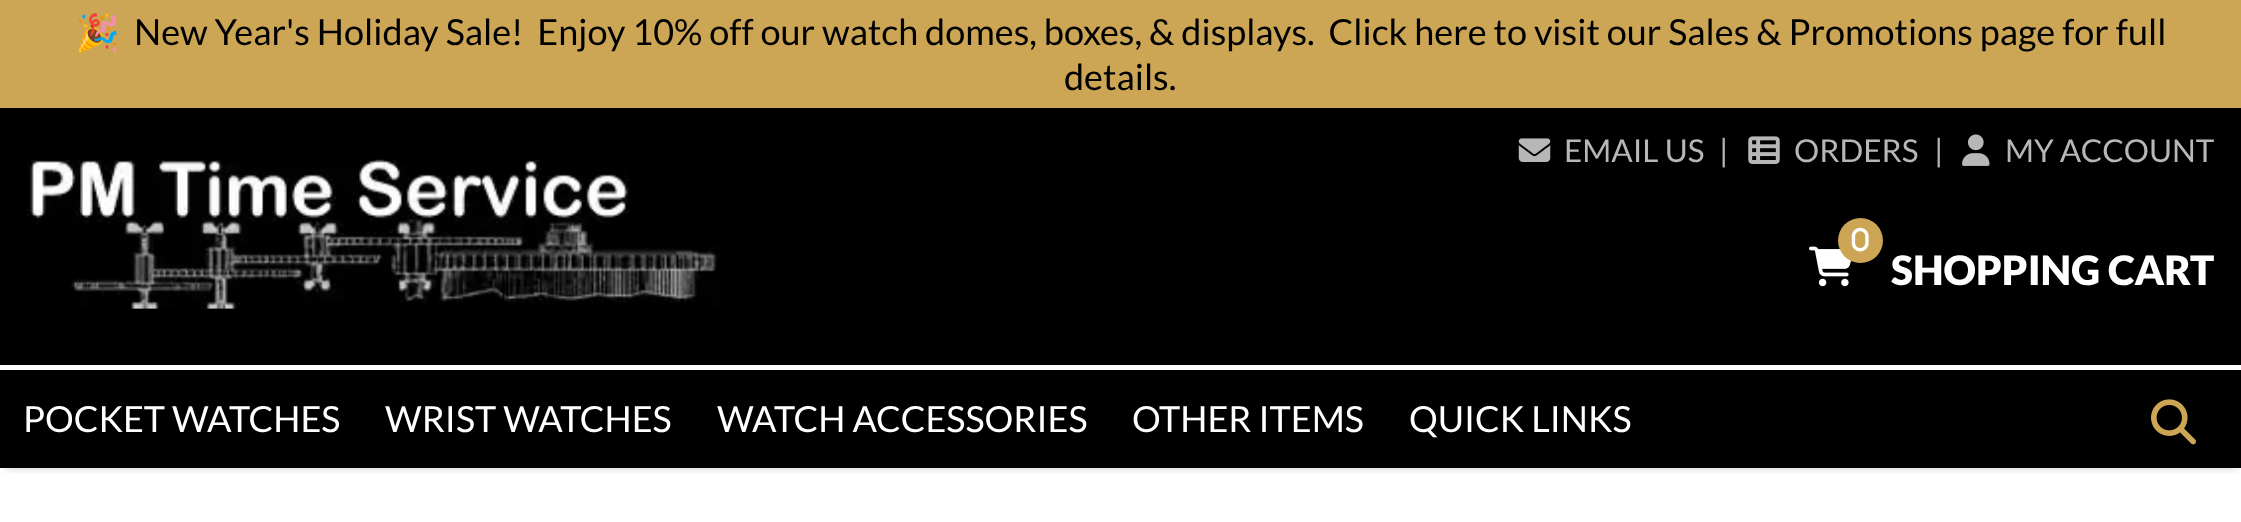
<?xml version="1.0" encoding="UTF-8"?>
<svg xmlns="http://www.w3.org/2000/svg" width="2241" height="522">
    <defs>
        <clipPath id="clip1"><rect x="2" y="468" width="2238" height="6"/></clipPath>
        <filter id="blur1" x="-50%" y="-200%" width="200%" height="500%"><feGaussianBlur stdDeviation="4.5"/></filter>
    </defs>
    <rect width="100%" height="100%" fill="#FFFFFF"/>
    <rect x="0" y="108" width="2241" height="360" fill="#000000"/>
    <rect x="0" y="0" width="2241" height="108" fill="#CCA655"/>
    <text x="75" y="45" font-family="Noto Color Emoji" font-size="36" fill="#000000">🎉</text>
    <text x="134" y="45" font-family="Lato" font-size="36" fill="#000000" xml:space="preserve">New Year's Holiday Sale!  Enjoy 10% off our watch domes, boxes, &amp; displays.  Click here to visit our Sales &amp; Promotions page for full</text>
    <text x="1064" y="90" font-family="Lato" font-size="36" fill="#000000">details.</text>
    <image x="27" y="159" width="693" height="150" href="img_01.png"/>
    <image x="1518" y="138" width="33" height="24" href="img_02.png"/>
    <text x="1564" y="162" font-family="Lato" font-size="31.5" fill="#B7B7B7">EMAIL US</text>
    <text x="1719" y="162" font-family="Lato" font-size="31.5" fill="#B7B7B7">|</text>
    <image x="1748" y="136" width="32" height="28" href="img_03.png"/>
    <text x="1794" y="162" font-family="Lato" font-size="31.5" fill="#B7B7B7">ORDERS</text>
    <text x="1934" y="162" font-family="Lato" font-size="31.5" fill="#B7B7B7">|</text>
    <image x="1962" y="134" width="28" height="32" href="img_04.png"/>
    <text x="2005" y="162" font-family="Lato" font-size="31.5" fill="#B7B7B7">MY ACCOUNT</text>
    <image x="1809" y="246" width="43" height="41" href="img_05.png"/>
    <circle cx="1860.5" cy="240.5" r="22.5" fill="#CCA655"/>
    <image x="1851" y="227" width="18" height="25" href="img_06.png"/>
    <text x="1891" y="285" font-family="Lato" font-size="40.5" font-weight="900" fill="#FFFFFF">SHOPPING CART</text>
    <g clip-path="url(#clip1)">
        <rect x="5" y="369" width="2232" height="99" fill="#000000" fill-opacity="0.2" filter="url(#blur1)"/>
    </g>
    <rect x="0" y="365" width="2241" height="5" fill="#FFFFFF"/>
    <text x="23" y="432" font-family="Lato" font-size="36" fill="#FFFFFF">POCKET WATCHES</text>
    <text x="385" y="432" font-family="Lato" font-size="36" fill="#FFFFFF">WRIST WATCHES</text>
    <text x="717" y="432" font-family="Lato" font-size="36" fill="#FFFFFF">WATCH ACCESSORIES</text>
    <text x="1132" y="432" font-family="Lato" font-size="36" fill="#FFFFFF">OTHER ITEMS</text>
    <text x="1409" y="432" font-family="Lato" font-size="36" fill="#FFFFFF">QUICK LINKS</text>
    <image x="2151" y="399" width="45" height="46" href="img_07.png"/>
</svg>
